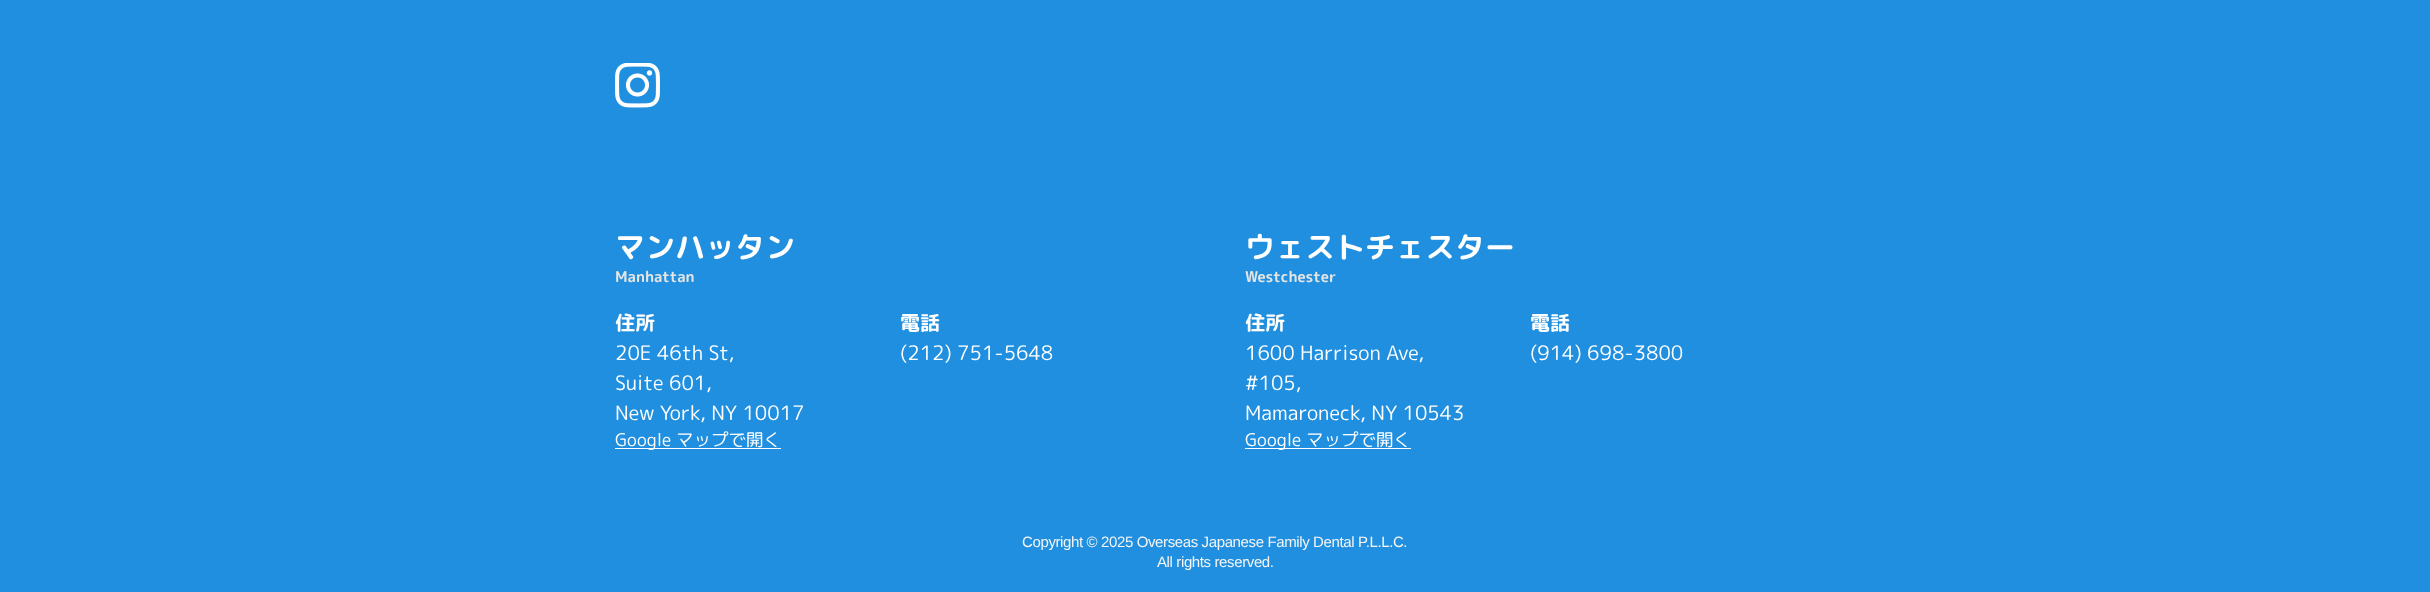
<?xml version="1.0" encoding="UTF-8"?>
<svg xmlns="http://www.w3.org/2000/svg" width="2430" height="592">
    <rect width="100%" height="100%" fill="#208FDF"/>
    <image x="615" y="63" width="45" height="45" href="img_01.png"/>
    <text x="615" y="258" font-family="'Rounded Mplus 1c Bold'" font-size="30" font-weight="700" fill="#FFFFFF">マンハッタン</text>
    <text x="615" y="282" font-family="'Rounded Mplus 1c Bold'" font-size="15" font-weight="700" fill="#E5E5E5">Manhattan</text>
    <text x="615" y="330" font-family="'Rounded Mplus 1c Bold'" font-size="20" font-weight="700" fill="#FFFFFF">住所</text>
    <text font-family="'Rounded Mplus 1c'" font-size="20" fill="#FFFFFF">
        <tspan x="615" y="360">20E 46th St,</tspan>
        <tspan x="615" y="390">Suite 601,</tspan>
        <tspan x="615" y="420">New York, NY 10017</tspan>
    </text>
    <rect x="615" y="448" width="166" height="1" fill="#FFFFFF"/>
    <text x="615" y="446" font-family="'Rounded Mplus 1c'" font-size="17.5" fill="#FFFFFF">Google マップで開く</text>
    <text x="900" y="330" font-family="'Rounded Mplus 1c Bold'" font-size="20" font-weight="700" fill="#FFFFFF">電話</text>
    <text x="900" y="360" font-family="'Rounded Mplus 1c'" font-size="20" fill="#FFFFFF">(212) 751-5648</text>
    <text x="1245" y="258" font-family="'Rounded Mplus 1c Bold'" font-size="30" font-weight="700" fill="#FFFFFF">ウェストチェスター</text>
    <text x="1245" y="282" font-family="'Rounded Mplus 1c Bold'" font-size="15" font-weight="700" fill="#E5E5E5">Westchester</text>
    <text x="1245" y="330" font-family="'Rounded Mplus 1c Bold'" font-size="20" font-weight="700" fill="#FFFFFF">住所</text>
    <text font-family="'Rounded Mplus 1c'" font-size="20" fill="#FFFFFF">
        <tspan x="1245" y="360">1600 Harrison Ave,</tspan>
        <tspan x="1245" y="390">#105,</tspan>
        <tspan x="1245" y="420">Mamaroneck, NY 10543</tspan>
    </text>
    <rect x="1245" y="448" width="166" height="1" fill="#FFFFFF"/>
    <text x="1245" y="446" font-family="'Rounded Mplus 1c'" font-size="17.5" fill="#FFFFFF">Google マップで開く</text>
    <text x="1530" y="330" font-family="'Rounded Mplus 1c Bold'" font-size="20" font-weight="700" fill="#FFFFFF">電話</text>
    <text x="1530" y="360" font-family="'Rounded Mplus 1c'" font-size="20" fill="#FFFFFF">(914) 698-3800</text>
    <text x="1022" y="547" font-family="Liberation Sans" font-size="15" letter-spacing="-0.38" fill="#F5F5F5">Copyright © 2025 Overseas Japanese Family Dental P.L.L.C.</text>
    <text x="1157" y="567" font-family="Liberation Sans" font-size="15" letter-spacing="-0.38" fill="#F5F5F5">All rights reserved.</text>
</svg>
